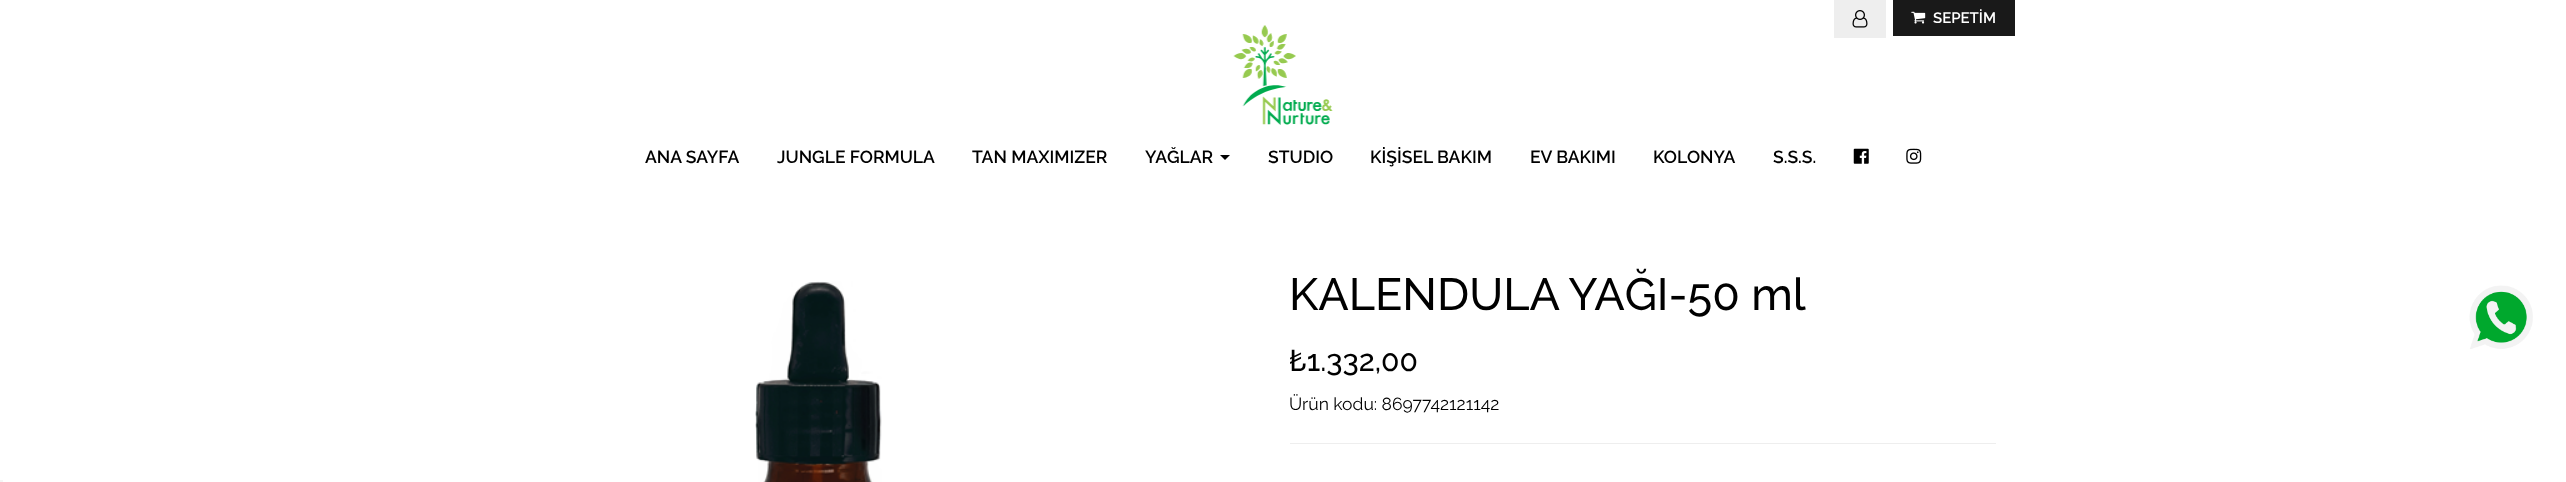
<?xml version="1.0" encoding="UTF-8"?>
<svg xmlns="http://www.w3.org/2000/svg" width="2566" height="482">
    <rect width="100%" height="100%" fill="#FFFFFF"/>
    <rect x="1834" y="0" width="52" height="38" fill="#EEEEEE"/>
    <image x="1852" y="10" width="16" height="18" href="img_01.png"/>
    <rect x="1893" y="0" width="122" height="36" fill="#191919"/>
    <image x="1911" y="11" width="15" height="13" href="img_02.png"/>
    <text x="1933" y="23" font-family="Raleway" font-size="15" font-weight="600" fill="#FFFFFF">SEPETİM</text>
    <image x="1233" y="25" width="100" height="100" href="img_03.png"/>
    <text x="645" y="163" font-family="Raleway" font-size="17.5" font-weight="600" fill="#000000">ANA SAYFA</text>
    <text x="777" y="163" font-family="Raleway" font-size="17.5" font-weight="600" fill="#000000">JUNGLE FORMULA</text>
    <text x="972" y="163" font-family="Raleway" font-size="17.5" font-weight="600" fill="#000000">TAN MAXIMIZER</text>
    <text x="1145" y="163" font-family="Raleway" font-size="17.5" font-weight="600" fill="#000000">YAĞLAR</text>
    <path d="M 1220 155 H 1230 L 1225 160 Z" fill="#000000"/>
    <text x="1268" y="163" font-family="Raleway" font-size="17.5" font-weight="600" fill="#000000">STUDIO</text>
    <text x="1370" y="163" font-family="Raleway" font-size="17.5" font-weight="600" fill="#000000">KİŞİSEL BAKIM</text>
    <text x="1530" y="163" font-family="Raleway" font-size="17.5" font-weight="600" fill="#000000">EV BAKIMI</text>
    <text x="1653" y="163" font-family="Raleway" font-size="17.5" font-weight="600" fill="#000000">KOLONYA</text>
    <text x="1773" y="163" font-family="Raleway" font-size="17.5" font-weight="600" fill="#000000">S.S.S.</text>
    <image x="1853" y="148" width="16" height="16" href="img_04.png"/>
    <image x="1906" y="148" width="16" height="16" href="img_05.png"/>
    <image x="755" y="281" width="127" height="201" href="img_06.png"/>
    <text x="1289" y="310" font-family="Raleway" font-size="45" font-weight="500" fill="#000000">KALENDULA YAĞI-50 ml</text>
    <text x="1289" y="371" font-family="Raleway" font-size="30" font-weight="500" fill="#000000">₺1.332,00</text>
    <text x="1289" y="410" font-family="Raleway" font-size="17.5" fill="#000000">Ürün kodu: 8697742121142</text>
    <rect x="1290" y="443" width="706" height="1" fill="#EEEEEE"/>
    <image x="2469" y="285" width="64" height="64" href="img_07.png"/>
    <rect x="0" y="480" width="3" height="2" fill="#F5F5F5"/>
</svg>
